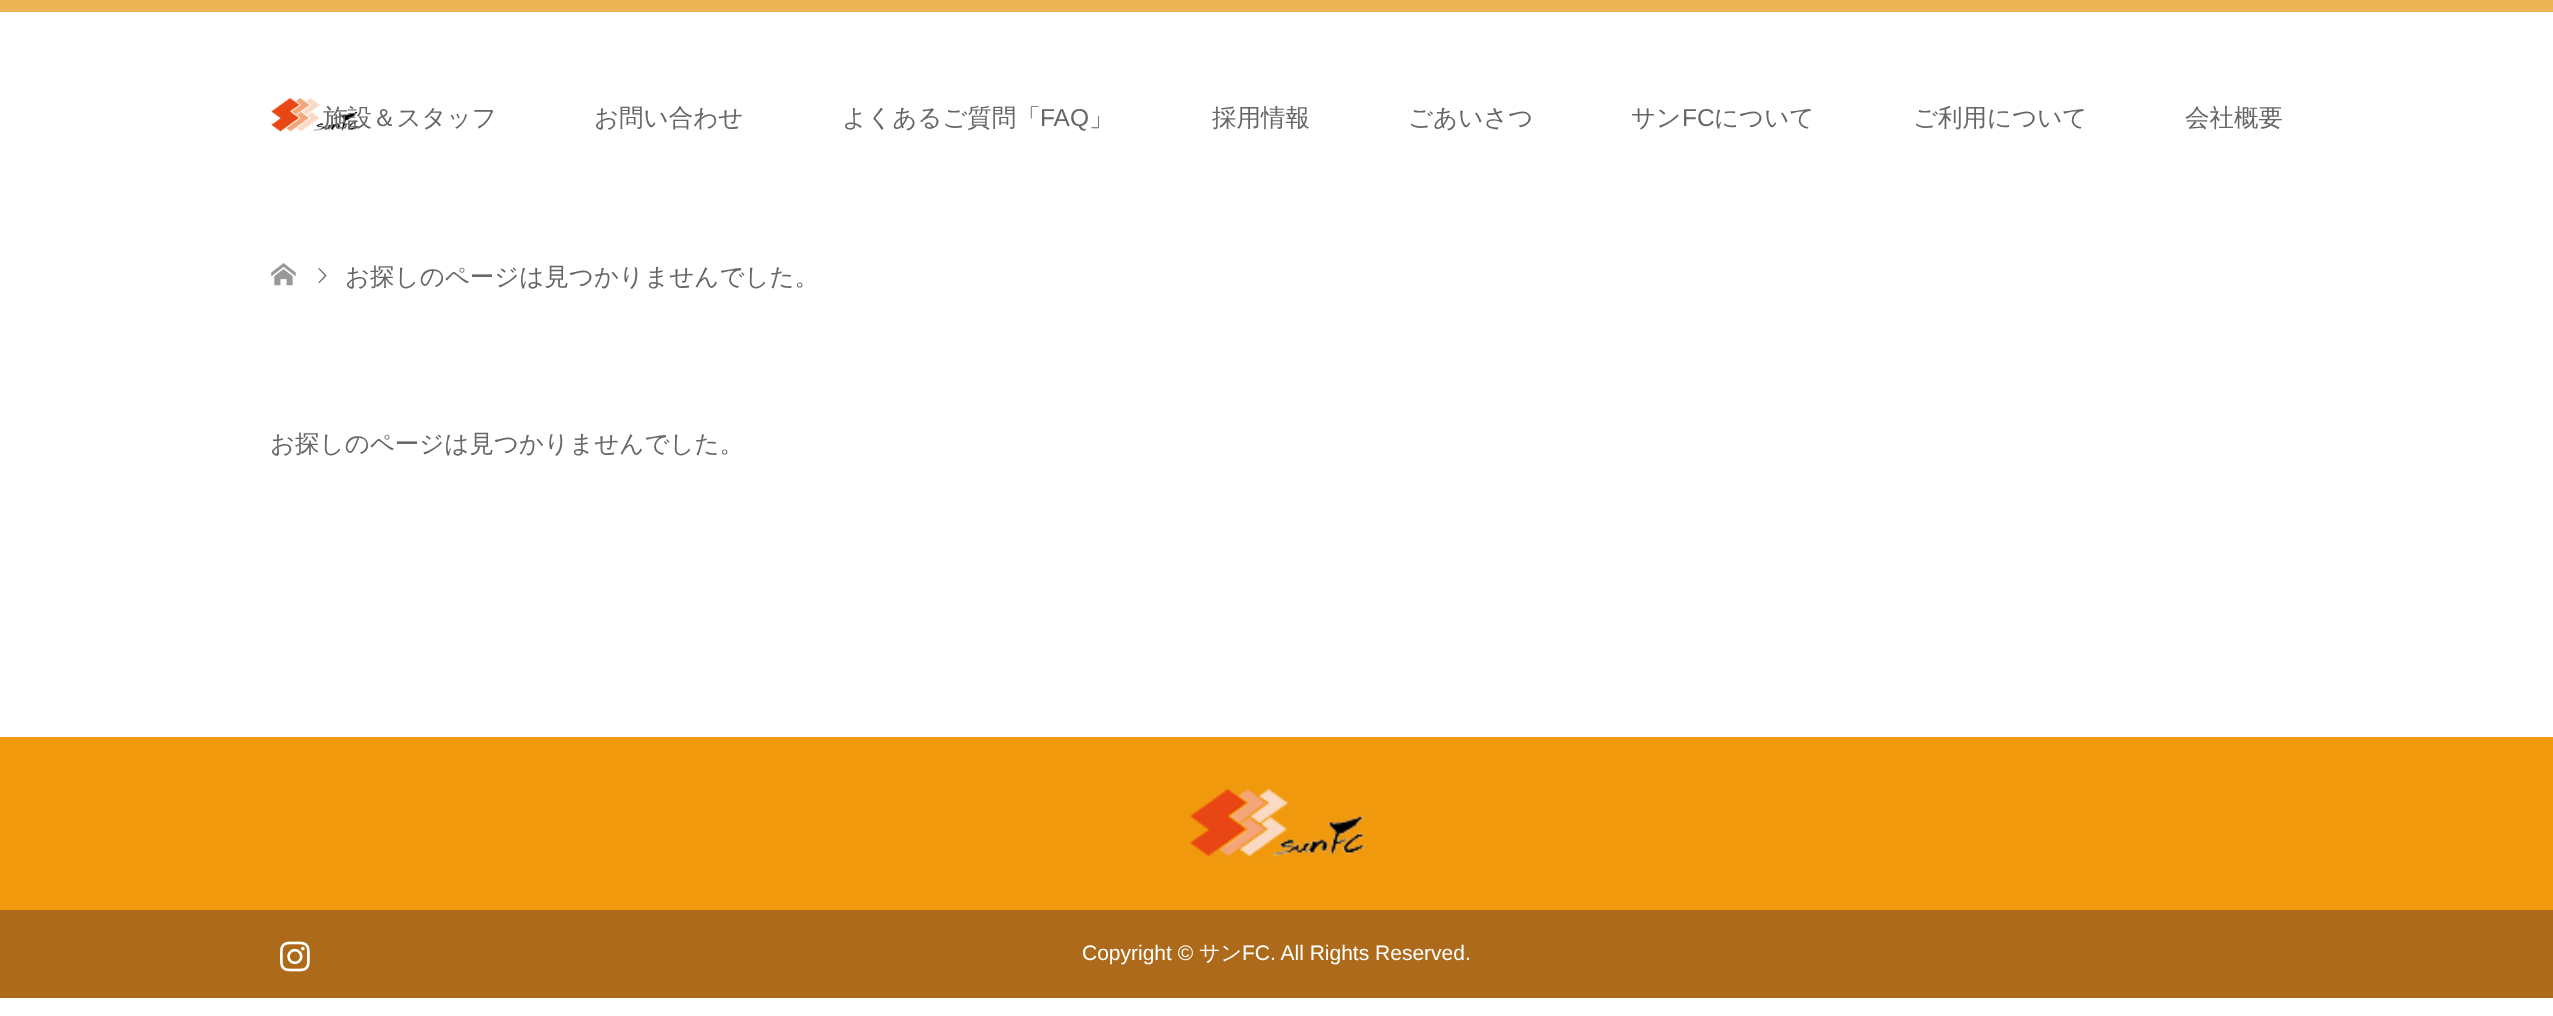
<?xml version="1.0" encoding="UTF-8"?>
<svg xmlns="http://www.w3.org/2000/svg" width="2553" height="1016">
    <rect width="100%" height="100%" fill="#FFFFFF"/>
    <rect x="0" y="0" width="2553" height="12" fill="#EDB556"/>
    <image x="271" y="98" width="88" height="34" href="img_01.png"/>
    <text x="323" y="126" font-family="WenQuanYi Zen Hei" font-size="24.5" font-weight="500" fill="#666666">施設＆スタッフ</text>
    <text x="594" y="126" font-family="WenQuanYi Zen Hei" font-size="24.5" font-weight="500" fill="#666666">お問い合わせ</text>
    <text x="842" y="126" font-family="WenQuanYi Zen Hei" font-size="24.5" font-weight="500" fill="#666666">よくあるご質問「</text>
    <text x="1040" y="126" font-family="Liberation Sans" font-size="24.5" fill="#666666">FAQ</text>
    <text x="1089" y="126" font-family="WenQuanYi Zen Hei" font-size="24.5" font-weight="500" fill="#666666">」</text>
    <text x="1212" y="126" font-family="WenQuanYi Zen Hei" font-size="24.5" font-weight="500" fill="#666666">採用情報</text>
    <text x="1408" y="126" font-family="WenQuanYi Zen Hei" font-size="24.5" font-weight="500" fill="#666666">ごあいさつ</text>
    <text x="1631" y="126" font-family="WenQuanYi Zen Hei" font-size="24.5" font-weight="500" fill="#666666">サン</text>
    <text x="1682" y="126" font-family="Liberation Sans" font-size="24.5" fill="#666666">FC</text>
    <text x="1714" y="126" font-family="WenQuanYi Zen Hei" font-size="24.5" font-weight="500" fill="#666666">について</text>
    <text x="1913" y="126" font-family="WenQuanYi Zen Hei" font-size="24.5" font-weight="500" fill="#666666">ご利用について</text>
    <text x="2185" y="126" font-family="WenQuanYi Zen Hei" font-size="24.5" font-weight="500" fill="#666666">会社概要</text>
    <image x="271" y="263" width="25" height="23" href="img_02.png"/>
    <image x="318" y="268" width="9" height="16" href="img_03.png"/>
    <text x="345" y="285" font-family="WenQuanYi Zen Hei" font-size="24.5" font-weight="500" fill="#666666">お探しのページは見つかりませんでした。</text>
    <text x="270" y="452" font-family="WenQuanYi Zen Hei" font-size="24.5" font-weight="500" fill="#666666">お探しのページは見つかりませんでした。</text>
    <rect x="0" y="737" width="2553" height="173" fill="#F1990C"/>
    <image x="1190" y="789" width="175" height="68" href="img_04.png"/>
    <rect x="0" y="910" width="2553" height="88" fill="#AD6A1A"/>
    <image x="280" y="941" width="30" height="31" href="img_05.png"/>
    <text x="1082" y="960" font-family="Liberation Sans" font-size="21" fill="#FFFFFF">Copyright ©</text>
    <text x="1199" y="960" font-family="WenQuanYi Zen Hei" font-size="21" font-weight="500" fill="#FFFFFF">サン</text>
    <text x="1242" y="960" font-family="Liberation Sans" font-size="21" fill="#FFFFFF">FC. All Rights Reserved.</text>
</svg>
